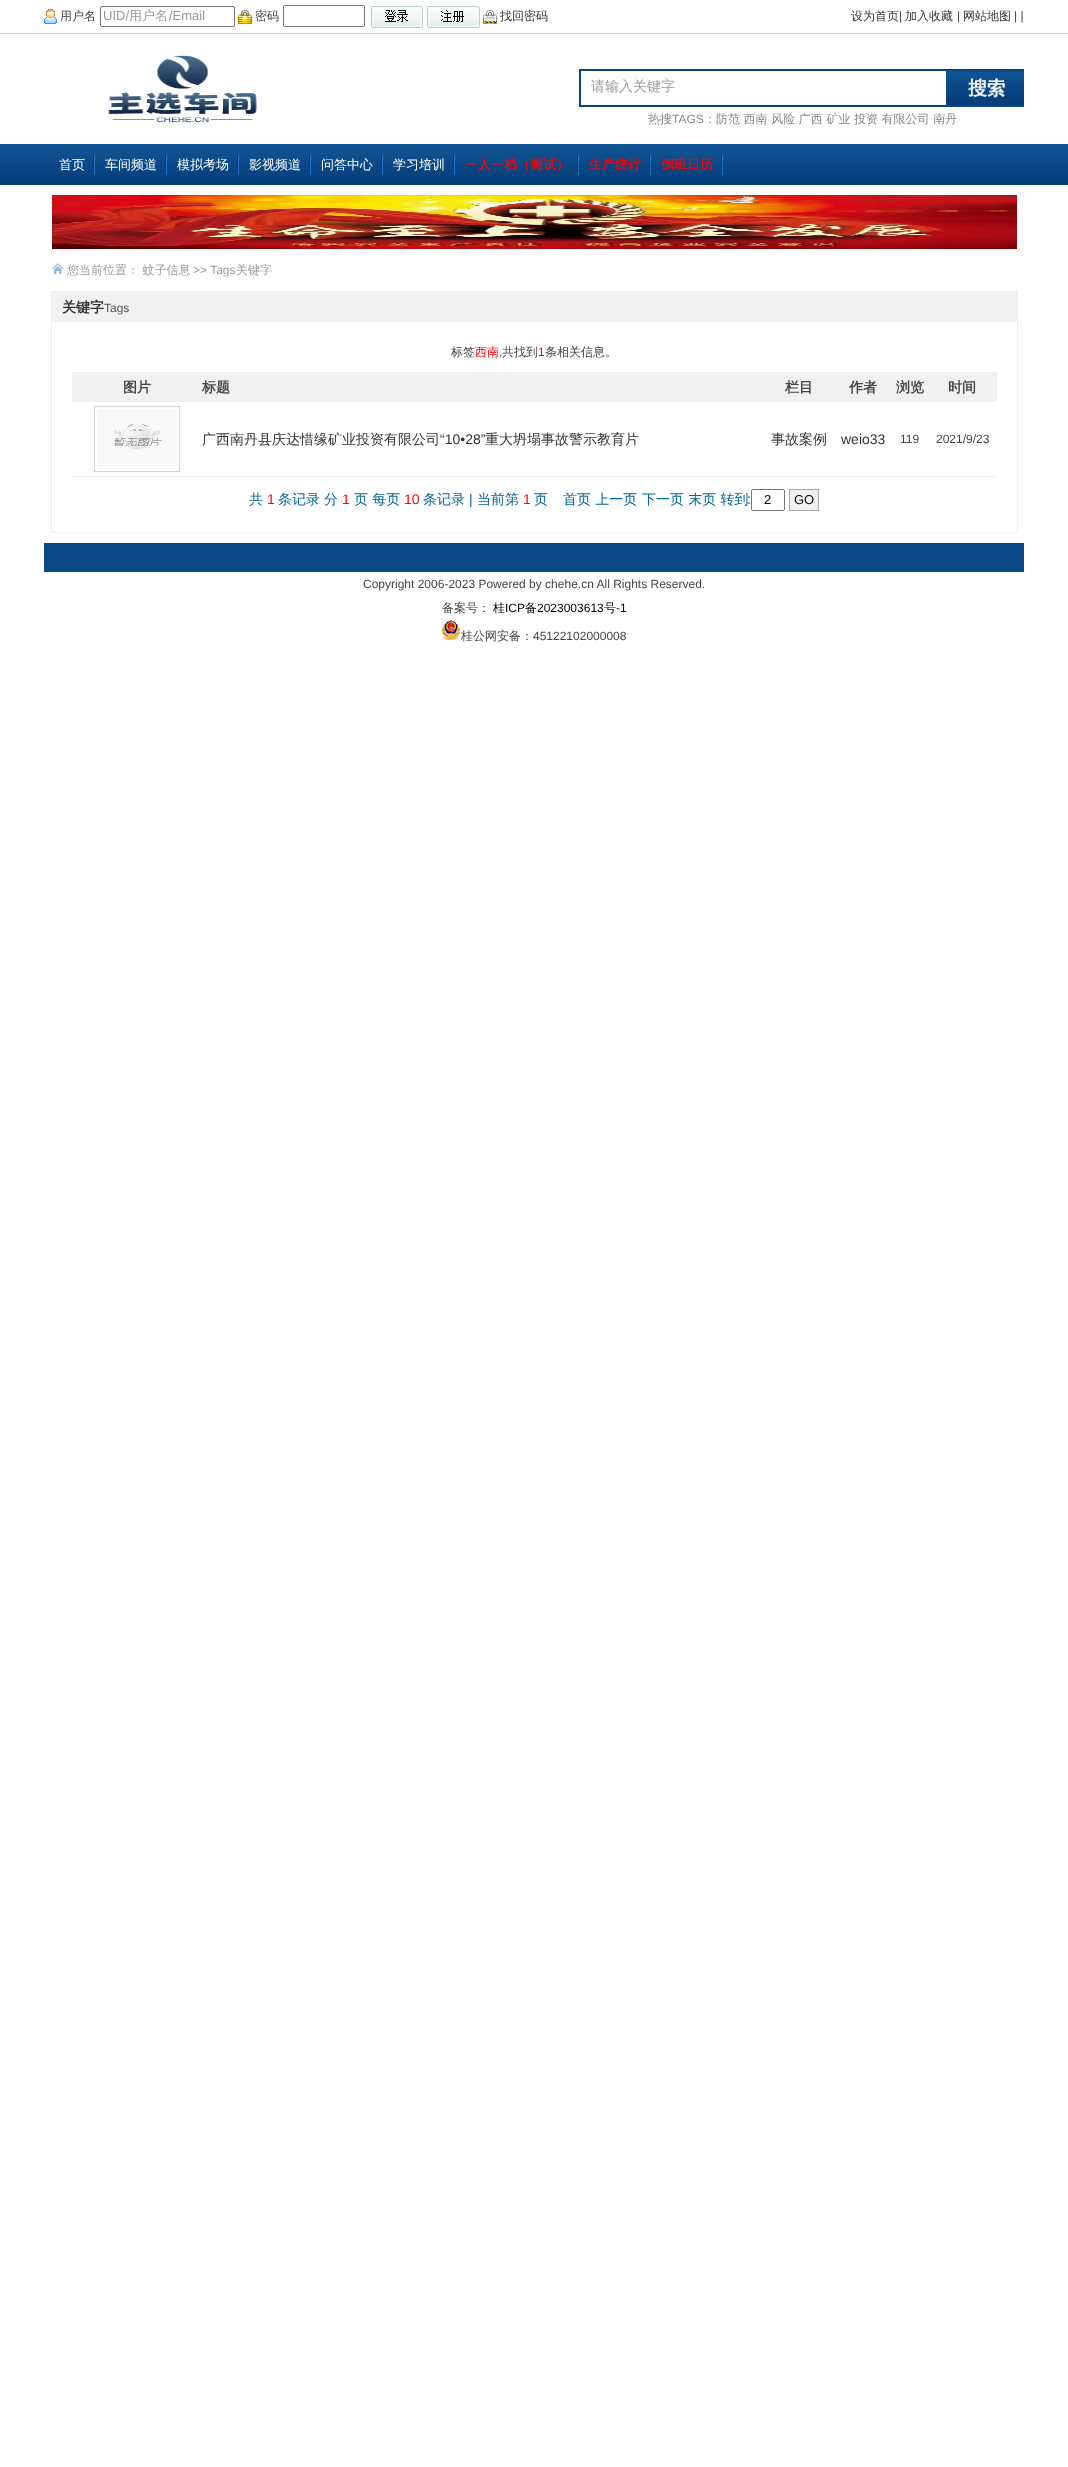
<?xml version="1.0" encoding="UTF-8"?>
<svg xmlns="http://www.w3.org/2000/svg" width="1068" height="2467">
    <defs>
        <clipPath id="clip1"><rect x="579" y="34" width="445" height="97"/></clipPath>
    </defs>
    <rect width="100%" height="100%" fill="#FFFFFF"/>
    <rect x="0" y="33" width="1068" height="1" fill="#CCCCCC"/>
    <image x="44" y="9" width="13" height="15" href="img_01.png"/>
    <text x="60" y="20" font-family="WenQuanYi Zen Hei" font-size="12" font-weight="500" fill="#444444">用户名</text>
    <rect x="100.5" y="6.5" width="134" height="20" rx="1.5" fill="none" stroke="#767676"/>
    <text x="103" y="20" font-family="Liberation Sans" font-size="13" fill="#999999">UID/</text>
    <text x="129" y="20" font-family="WenQuanYi Zen Hei" font-size="13" font-weight="500" fill="#999999">用户名</text>
    <text x="169" y="20" font-family="Liberation Sans" font-size="13" fill="#999999">/Email</text>
    <image x="238" y="10" width="14" height="14" href="img_02.png"/>
    <text x="255" y="20" font-family="WenQuanYi Zen Hei" font-size="12" font-weight="500" fill="#444444">密码</text>
    <rect x="283.5" y="5.5" width="81" height="21" rx="1.5" fill="none" stroke="#767676"/>
    <image x="371" y="6" width="52" height="22" href="img_03.png"/>
    <image x="427" y="6" width="53" height="22" href="img_04.png"/>
    <image x="483" y="10" width="14" height="14" href="img_05.png"/>
    <text x="500" y="20" font-family="WenQuanYi Zen Hei" font-size="12" font-weight="500" fill="#333333">找回密码</text>
    <text x="851" y="20" font-family="WenQuanYi Zen Hei" font-size="12" font-weight="500" fill="#333333">设为首页</text>
    <text x="899" y="20" font-family="Liberation Sans" font-size="12" fill="#444444">|</text>
    <text x="905" y="20" font-family="WenQuanYi Zen Hei" font-size="12" font-weight="500" fill="#333333">加入收藏</text>
    <text x="957" y="20" font-family="Liberation Sans" font-size="12" fill="#444444">|</text>
    <text x="963" y="20" font-family="WenQuanYi Zen Hei" font-size="12" font-weight="500" fill="#333333">网站地图</text>
    <text x="1014" y="20" font-family="Liberation Sans" font-size="12" fill="#444444">| |</text>
    <image x="108" y="55" width="149" height="68" href="img_06.png"/>
    <g clip-path="url(#clip1)">
        <rect x="580" y="70" width="458" height="36" fill="none" stroke="#094583" stroke-width="2"/>
    </g>
    <text x="591" y="91" font-family="WenQuanYi Zen Hei" font-size="14" font-weight="500" fill="#999999">请输入关键字</text>
    <image x="946" y="71" width="78" height="34" href="img_07.png"/>
    <text x="648" y="123" font-family="WenQuanYi Zen Hei" font-size="12" font-weight="500" fill="#888888">热搜</text>
    <text x="672" y="123" font-family="Liberation Sans" font-size="12" fill="#888888">TAGS</text>
    <text x="704" y="123" font-family="WenQuanYi Zen Hei" font-size="12" font-weight="500" fill="#888888">：防范 西南 风险 广西 矿业 投资 有限公司 南丹</text>
    <image x="0" y="144" width="1068" height="41" href="img_08.png"/>
    <image x="93" y="155" width="2" height="20" href="img_09.png"/>
    <text x="59" y="169" font-family="WenQuanYi Zen Hei" font-size="13" font-weight="500" fill="#FFFFFF">首页</text>
    <image x="165" y="155" width="2" height="20" href="img_09.png"/>
    <text x="105" y="169" font-family="WenQuanYi Zen Hei" font-size="13" font-weight="500" fill="#FFFFFF">车间频道</text>
    <image x="237" y="155" width="2" height="20" href="img_09.png"/>
    <text x="177" y="169" font-family="WenQuanYi Zen Hei" font-size="13" font-weight="500" fill="#FFFFFF">模拟考场</text>
    <image x="309" y="155" width="2" height="20" href="img_09.png"/>
    <text x="249" y="169" font-family="WenQuanYi Zen Hei" font-size="13" font-weight="500" fill="#FFFFFF">影视频道</text>
    <image x="381" y="155" width="2" height="20" href="img_09.png"/>
    <text x="321" y="169" font-family="WenQuanYi Zen Hei" font-size="13" font-weight="500" fill="#FFFFFF">问答中心</text>
    <image x="453" y="155" width="2" height="20" href="img_09.png"/>
    <text x="393" y="169" font-family="WenQuanYi Zen Hei" font-size="13" font-weight="500" fill="#FFFFFF">学习培训</text>
    <image x="577" y="155" width="2" height="20" href="img_09.png"/>
    <text x="465" y="169" font-family="WenQuanYi Zen Hei" font-size="13" font-weight="700" fill="#FF0000">一人一档（测试）</text>
    <image x="649" y="155" width="2" height="20" href="img_09.png"/>
    <text x="589" y="169" font-family="WenQuanYi Zen Hei" font-size="13" font-weight="700" fill="#FF0000">生产统计</text>
    <image x="721" y="155" width="2" height="20" href="img_09.png"/>
    <text x="661" y="169" font-family="WenQuanYi Zen Hei" font-size="13" font-weight="700" fill="#FF0000">倒班日历</text>
    <image x="52" y="195" width="965" height="54" href="img_10.png"/>
    <image x="52" y="263" width="12" height="11" href="img_11.png"/>
    <text x="67" y="274" font-family="WenQuanYi Zen Hei" font-size="12" font-weight="500" fill="#999999">您当前位置： 蚊子信息</text>
    <text x="193" y="274" font-family="Liberation Sans" font-size="12" fill="#999999">&gt;&gt; Tags</text>
    <text x="236" y="274" font-family="WenQuanYi Zen Hei" font-size="12" font-weight="500" fill="#999999">关键字</text>
    <rect x="51.5" y="291.5" width="966" height="241" fill="none" stroke="#EEEEEE"/>
    <rect x="52" y="292" width="965" height="30" fill="#F1F1F1"/>
    <text x="62" y="312" font-family="WenQuanYi Zen Hei" font-size="14" font-weight="700" fill="#333333">关键字</text>
    <text x="104" y="312" font-family="Liberation Sans" font-size="12" fill="#555555">Tags</text>
    <text x="451" y="356" font-family="WenQuanYi Zen Hei" font-size="12" font-weight="500" fill="#444444">标签</text>
    <text x="475" y="356" font-family="WenQuanYi Zen Hei" font-size="12" font-weight="500" fill="#FF0000">西南</text>
    <text x="499" y="356" font-family="Liberation Sans" font-size="12" fill="#444444">,</text>
    <text x="502" y="356" font-family="WenQuanYi Zen Hei" font-size="12" font-weight="500" fill="#444444">共找到</text>
    <text x="538" y="356" font-family="Liberation Sans" font-size="12" fill="#FF0000">1</text>
    <text x="545" y="356" font-family="WenQuanYi Zen Hei" font-size="12" font-weight="500" fill="#444444">条相关信息。</text>
    <rect x="72" y="372" width="925" height="30" fill="#F1F1F1"/>
    <text x="123" y="392" font-family="WenQuanYi Zen Hei" font-size="14" font-weight="700" fill="#444444">图片</text>
    <text x="202" y="392" font-family="WenQuanYi Zen Hei" font-size="14" font-weight="700" fill="#444444">标题</text>
    <text x="785" y="392" font-family="WenQuanYi Zen Hei" font-size="14" font-weight="700" fill="#444444">栏目</text>
    <text x="849" y="392" font-family="WenQuanYi Zen Hei" font-size="14" font-weight="700" fill="#444444">作者</text>
    <text x="896" y="392" font-family="WenQuanYi Zen Hei" font-size="14" font-weight="700" fill="#444444">浏览</text>
    <text x="948" y="392" font-family="WenQuanYi Zen Hei" font-size="14" font-weight="700" fill="#444444">时间</text>
    <rect x="72" y="476" width="925" height="1" fill="#E8E8E8"/>
    <rect x="94.5" y="406.5" width="85" height="65" fill="none" stroke="#D4D4D4"/>
    <image x="97" y="409" width="80" height="60" href="img_12.png"/>
    <text x="202" y="444" font-family="WenQuanYi Zen Hei" font-size="14" font-weight="500" fill="#333333">广西南丹县庆达惜缘矿业投资有限公司</text>
    <text x="440" y="444" font-family="Liberation Sans" font-size="14" fill="#333333">“10•28”</text>
    <text x="485" y="444" font-family="WenQuanYi Zen Hei" font-size="14" font-weight="500" fill="#333333">重大坍塌事故警示教育片</text>
    <text x="771" y="444" font-family="WenQuanYi Zen Hei" font-size="14" font-weight="500" fill="#333333">事故案例</text>
    <text x="841" y="444" font-family="Liberation Sans" font-size="14" fill="#333333">weio33</text>
    <text x="900" y="443" font-family="Liberation Sans" font-size="12" fill="#444444">119</text>
    <text x="936" y="443" font-family="Liberation Sans" font-size="12" fill="#444444">2021/9/23</text>
    <text x="249" y="504" font-family="WenQuanYi Zen Hei" font-size="14" font-weight="500" fill="#006699">共</text>
    <text x="267" y="504" font-family="Liberation Sans" font-size="14" fill="#FF0000">1</text>
    <text x="278" y="504" font-family="WenQuanYi Zen Hei" font-size="14" font-weight="500" fill="#006699">条记录</text>
    <text x="324" y="504" font-family="WenQuanYi Zen Hei" font-size="14" font-weight="500" fill="#006699">分</text>
    <text x="342" y="504" font-family="Liberation Sans" font-size="14" fill="#FF0000">1</text>
    <text x="354" y="504" font-family="WenQuanYi Zen Hei" font-size="14" font-weight="500" fill="#006699">页 每页</text>
    <text x="404" y="504" font-family="Liberation Sans" font-size="14" fill="#FF0000">10</text>
    <text x="423" y="504" font-family="WenQuanYi Zen Hei" font-size="14" font-weight="500" fill="#006699">条记录</text>
    <text x="469" y="504" font-family="Liberation Sans" font-size="14" fill="#006699">|</text>
    <text x="477" y="504" font-family="WenQuanYi Zen Hei" font-size="14" font-weight="500" fill="#006699">当前第</text>
    <text x="523" y="504" font-family="Liberation Sans" font-size="14" fill="#FF0000">1</text>
    <text x="534" y="504" font-family="WenQuanYi Zen Hei" font-size="14" font-weight="500" fill="#006699">页</text>
    <text x="563" y="504" font-family="WenQuanYi Zen Hei" font-size="14" font-weight="500" fill="#006699">首页 上一页</text>
    <text x="642" y="504" font-family="WenQuanYi Zen Hei" font-size="14" font-weight="500" fill="#006699">下一页 末页 转到</text>
    <text x="747" y="504" font-family="Liberation Sans" font-size="14" fill="#006699">:</text>
    <rect x="751.5" y="489.5" width="33" height="21" rx="1.5" fill="none" stroke="#767676"/>
    <text x="764" y="504" font-family="Liberation Sans" font-size="13" fill="#000000">2</text>
    <rect x="789.5" y="489.5" width="29" height="21" fill="#F1F1F1" stroke="#A7A7A7"/>
    <text x="794" y="504" font-family="Liberation Sans" font-size="13" fill="#000000">GO</text>
    <rect x="44" y="543" width="980" height="29" fill="#0A4885"/>
    <text x="363" y="588" font-family="Liberation Sans" font-size="12" fill="#444444">Copyright 2006-2023 Powered by chehe.cn All Rights Reserved.</text>
    <text x="442" y="612" font-family="WenQuanYi Zen Hei" font-size="12" font-weight="500" fill="#444444">备案号：</text>
    <text x="493" y="612" font-family="WenQuanYi Zen Hei" font-size="12" font-weight="500" fill="#000000">桂</text>
    <text x="505" y="612" font-family="Liberation Sans" font-size="12" fill="#000000">ICP</text>
    <text x="525" y="612" font-family="WenQuanYi Zen Hei" font-size="12" font-weight="500" fill="#000000">备</text>
    <text x="537" y="612" font-family="Liberation Sans" font-size="12" fill="#000000">2023003613</text>
    <text x="604" y="612" font-family="WenQuanYi Zen Hei" font-size="12" font-weight="500" fill="#000000">号</text>
    <text x="616" y="612" font-family="Liberation Sans" font-size="12" fill="#000000">-1</text>
    <image x="442" y="620" width="18" height="20" href="img_13.png"/>
    <text x="461" y="640" font-family="WenQuanYi Zen Hei" font-size="12" font-weight="500" fill="#444444">桂公网安备：</text>
    <text x="533" y="640" font-family="Liberation Sans" font-size="12" fill="#444444">45122102000008</text>
</svg>
